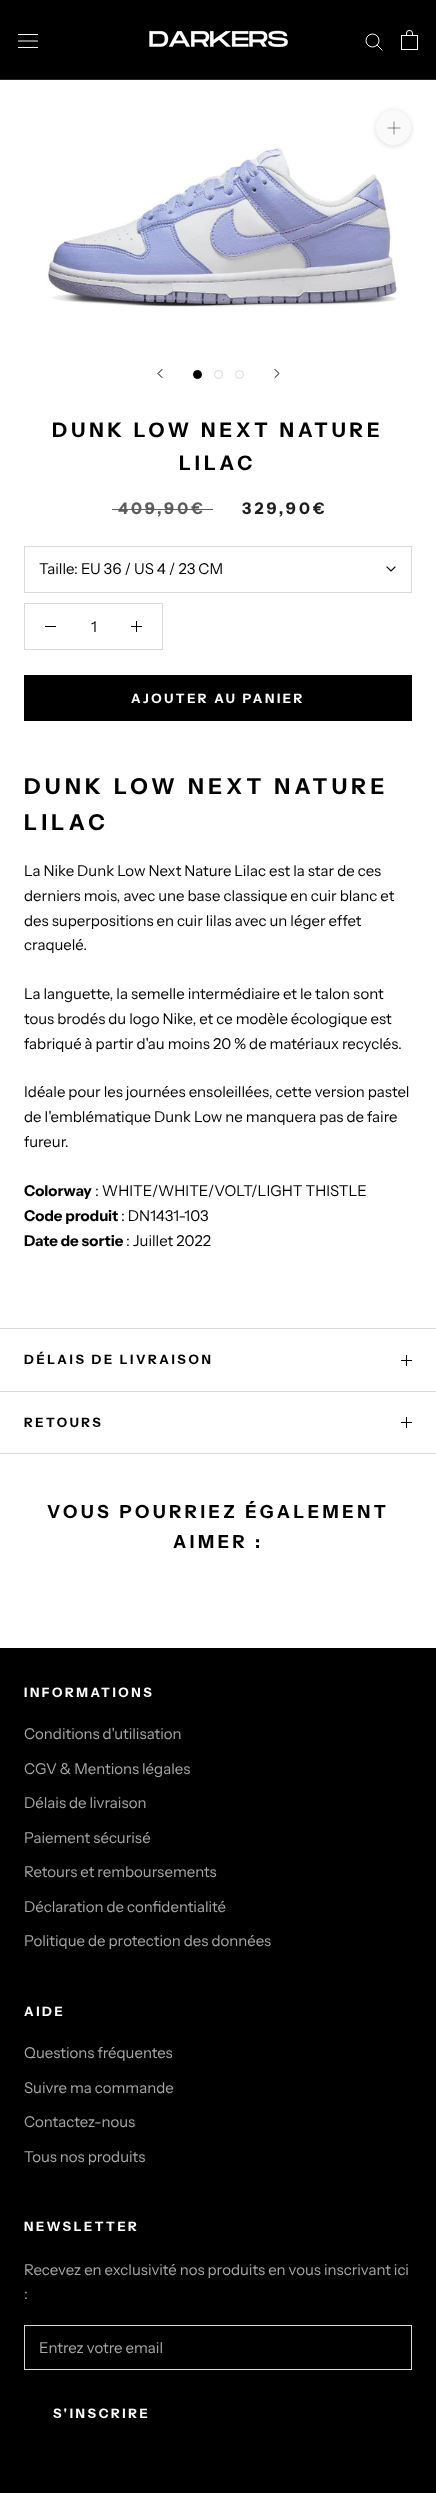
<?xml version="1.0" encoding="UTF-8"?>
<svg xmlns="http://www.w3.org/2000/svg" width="436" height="2493">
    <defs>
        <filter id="blur1" x="-50%" y="-200%" width="200%" height="500%"><feGaussianBlur stdDeviation="2.5"/></filter>
    </defs>
    <rect width="100%" height="100%" fill="#FFFFFF"/>
    <rect x="0" y="0" width="436" height="79" fill="#000000"/>
    <rect x="0" y="79" width="436" height="1" fill="#262626"/>
    <image x="18" y="34" width="20" height="14" href="img_01.png"/>
    <image x="149" y="30" width="139" height="18" href="img_02.png"/>
    <path d="M 382 50 L 377 45" fill="none" stroke="#FAFAFA" stroke-linecap="square"/>
    <circle cx="372.5" cy="40.5" r="6.5" fill="none" stroke="#FAFAFA"/>
    <image x="401" y="30" width="17" height="20" href="img_03.png"/>
    <image x="46" y="147" width="352" height="160" href="img_04.png"/>
    <rect x="376" y="111" width="35" height="35" rx="17.5" fill="#363636" fill-opacity="0.15" filter="url(#blur1)"/>
    <circle cx="393.5" cy="127.5" r="17.5" fill="#FAFAFA"/>
    <path d="M 394 122 V 134" fill="none" stroke="#7D7D7D" stroke-width="0.9" stroke-linecap="square"/>
    <path d="M 388 128 H 400" fill="none" stroke="#000000" stroke-opacity="0.5" stroke-width="0.9" stroke-linecap="square"/>
    <path d="M 162 377.5 L 158 373.5 L 162 369.5" fill="none" stroke="#000000" stroke-linecap="square"/>
    <circle cx="197.5" cy="374.5" r="4" fill="#000000" stroke="#000000"/>
    <circle cx="218.5" cy="374.5" r="4" fill="none" stroke="#D9D9D9"/>
    <circle cx="239.5" cy="374.5" r="4" fill="none" stroke="#D9D9D9"/>
    <path d="M 275 377.5 L 279 373.5 L 275 369.5" fill="none" stroke="#000000" stroke-linecap="square"/>
    <text x="52" y="437" font-family="Instrument Sans" font-size="20" font-weight="700" letter-spacing="4" fill="#000000">DUNK LOW NEXT NATURE</text>
    <text x="179" y="470" font-family="Instrument Sans" font-size="20" font-weight="700" letter-spacing="4" fill="#000000">LILAC</text>
    <text x="118" y="514" font-family="Instrument Sans" font-size="16" font-weight="700" letter-spacing="3" fill="#5C5C5C">409,90€</text>
    <rect x="112" y="509" width="101" height="1" fill="#5C5C5C"/>
    <text x="242" y="514" font-family="Instrument Sans" font-size="16" font-weight="700" letter-spacing="3" fill="#1D1D1D">329,90€</text>
    <rect x="24.5" y="546.5" width="387" height="46" fill="none" stroke="#D9D9D9"/>
    <text x="39" y="574" font-family="Instrument Sans" font-size="15" fill="#000000">Taille: EU 36 / US 4 / 23 CM</text>
    <path d="M 395 567 L 391 571 L 387 567" fill="none" stroke="#000000" stroke-width="1.1" stroke-linecap="square"/>
    <rect x="24.5" y="603.5" width="138" height="46" fill="none" stroke="#D9D9D9"/>
    <rect x="45" y="626" width="11" height="1" fill="#000000"/>
    <text x="91" y="632" font-family="Instrument Sans" font-size="15" fill="#000000">1</text>
    <rect x="136" y="621" width="1" height="11" fill="#000000"/>
    <rect x="131" y="626" width="11" height="1" fill="#000000"/>
    <rect x="24.5" y="675.5" width="387" height="45" fill="none" stroke="#000000"/>
    <rect x="25" y="676" width="386" height="44" fill="#000000"/>
    <text x="131" y="703" font-family="Instrument Sans" font-size="13" font-weight="700" letter-spacing="2.6" fill="#FFFFFF">AJOUTER AU PANIER</text>
    <text font-family="Instrument Sans" font-size="22" font-weight="700" letter-spacing="4.4" fill="#000000">
        <tspan x="24" y="794">DUNK LOW NEXT NATURE</tspan>
        <tspan x="24" y="830">LILAC</tspan>
    </text>
    <text font-family="Instrument Sans" font-size="15" fill="#000000">
        <tspan x="24" y="876">La Nike Dunk Low Next Nature Lilac est la star de ces</tspan>
        <tspan x="24" y="901">derniers mois, avec une base classique en cuir blanc et</tspan>
        <tspan x="24" y="926">des superpositions en cuir lilas avec un léger effet</tspan>
        <tspan x="24" y="950">craquelé.</tspan>
    </text>
    <text font-family="Instrument Sans" font-size="15" fill="#000000">
        <tspan x="24" y="999">La languette, la semelle intermédiaire et le talon sont</tspan>
        <tspan x="24" y="1024">tous brodés du logo Nike, et ce modèle écologique est</tspan>
        <tspan x="24" y="1049">fabriqué à partir d'au moins 20 % de matériaux recyclés.</tspan>
    </text>
    <text font-family="Instrument Sans" font-size="15" fill="#000000">
        <tspan x="24" y="1097">Idéale pour les journées ensoleillées, cette version pastel</tspan>
        <tspan x="24" y="1122">de l'emblématique Dunk Low ne manquera pas de faire</tspan>
        <tspan x="24" y="1147">fureur.</tspan>
    </text>
    <text x="24" y="1196" font-family="Instrument Sans" font-size="15" font-weight="700" fill="#000000">Colorway</text>
    <text x="95" y="1196" font-family="Instrument Sans" font-size="15" fill="#000000">: WHITE/WHITE/VOLT/LIGHT THISTLE</text>
    <text x="24" y="1221" font-family="Instrument Sans" font-size="15" font-weight="700" fill="#000000">Code produit</text>
    <text x="121" y="1221" font-family="Instrument Sans" font-size="15" fill="#000000">: DN1431-103</text>
    <text x="24" y="1246" font-family="Instrument Sans" font-size="15" font-weight="700" fill="#000000">Date de sortie</text>
    <text x="126" y="1246" font-family="Instrument Sans" font-size="15" fill="#000000">: Juillet 2022</text>
    <rect x="0" y="1328" width="436" height="1" fill="#D9D9D9"/>
    <rect x="0" y="1391" width="436" height="1" fill="#D9D9D9"/>
    <text x="24" y="1364" font-family="Instrument Sans" font-size="13" font-weight="700" letter-spacing="2.6" fill="#000000">DÉLAIS DE LIVRAISON</text>
    <rect x="406" y="1355" width="1" height="11" fill="#000000"/>
    <rect x="401" y="1360" width="11" height="1" fill="#000000"/>
    <rect x="0" y="1453" width="436" height="1" fill="#D9D9D9"/>
    <text x="24" y="1427" font-family="Instrument Sans" font-size="13" font-weight="700" letter-spacing="2.6" fill="#000000">RETOURS</text>
    <rect x="406" y="1417" width="1" height="11" fill="#000000"/>
    <rect x="401" y="1422" width="11" height="1" fill="#000000"/>
    <text x="47" y="1518" font-family="Instrument Sans" font-size="18" font-weight="700" letter-spacing="3.6" fill="#000000">VOUS POURRIEZ ÉGALEMENT</text>
    <text x="173" y="1548" font-family="Instrument Sans" font-size="18" font-weight="700" letter-spacing="3.6" fill="#000000">AIMER :</text>
    <rect x="0" y="1648" width="436" height="845" fill="#000000"/>
    <text x="24" y="1697" font-family="Instrument Sans" font-size="13" font-weight="700" letter-spacing="2.6" fill="#FFFFFF">INFORMATIONS</text>
    <text x="24" y="1739" font-family="Instrument Sans" font-size="15" fill="#A7A7A7">Conditions d'utilisation</text>
    <text x="24" y="1774" font-family="Instrument Sans" font-size="15" fill="#A7A7A7">CGV &amp; Mentions légales</text>
    <text x="24" y="1808" font-family="Instrument Sans" font-size="15" fill="#A7A7A7">Délais de livraison</text>
    <text x="24" y="1843" font-family="Instrument Sans" font-size="15" fill="#A7A7A7">Paiement sécurisé</text>
    <text x="24" y="1877" font-family="Instrument Sans" font-size="15" fill="#A7A7A7">Retours et remboursements</text>
    <text x="24" y="1912" font-family="Instrument Sans" font-size="15" fill="#A7A7A7">Déclaration de confidentialité</text>
    <text x="24" y="1946" font-family="Instrument Sans" font-size="15" fill="#A7A7A7">Politique de protection des données</text>
    <text x="24" y="2016" font-family="Instrument Sans" font-size="13" font-weight="700" letter-spacing="2.6" fill="#FFFFFF">AIDE</text>
    <text x="24" y="2058" font-family="Instrument Sans" font-size="15" fill="#A7A7A7">Questions fréquentes</text>
    <text x="24" y="2093" font-family="Instrument Sans" font-size="15" fill="#A7A7A7">Suivre ma commande</text>
    <text x="24" y="2127" font-family="Instrument Sans" font-size="15" fill="#A7A7A7">Contactez-nous</text>
    <text x="24" y="2162" font-family="Instrument Sans" font-size="15" fill="#A7A7A7">Tous nos produits</text>
    <text x="24" y="2231" font-family="Instrument Sans" font-size="13" font-weight="700" letter-spacing="2.6" fill="#FFFFFF">NEWSLETTER</text>
    <text font-family="Instrument Sans" font-size="15" fill="#A7A7A7">
        <tspan x="24" y="2275">Recevez en exclusivité nos produits en vous inscrivant ici</tspan>
        <tspan x="24" y="2299">:</tspan>
    </text>
    <rect x="24.5" y="2325.5" width="387" height="44" fill="none" stroke="#D9D9D9"/>
    <text x="39" y="2353" font-family="Instrument Sans" font-size="15" fill="#A7A7A7">Entrez votre email</text>
    <text x="53" y="2418" font-family="Instrument Sans" font-size="13" font-weight="700" letter-spacing="2.6" fill="#FFFFFF">S'INSCRIRE</text>
</svg>
